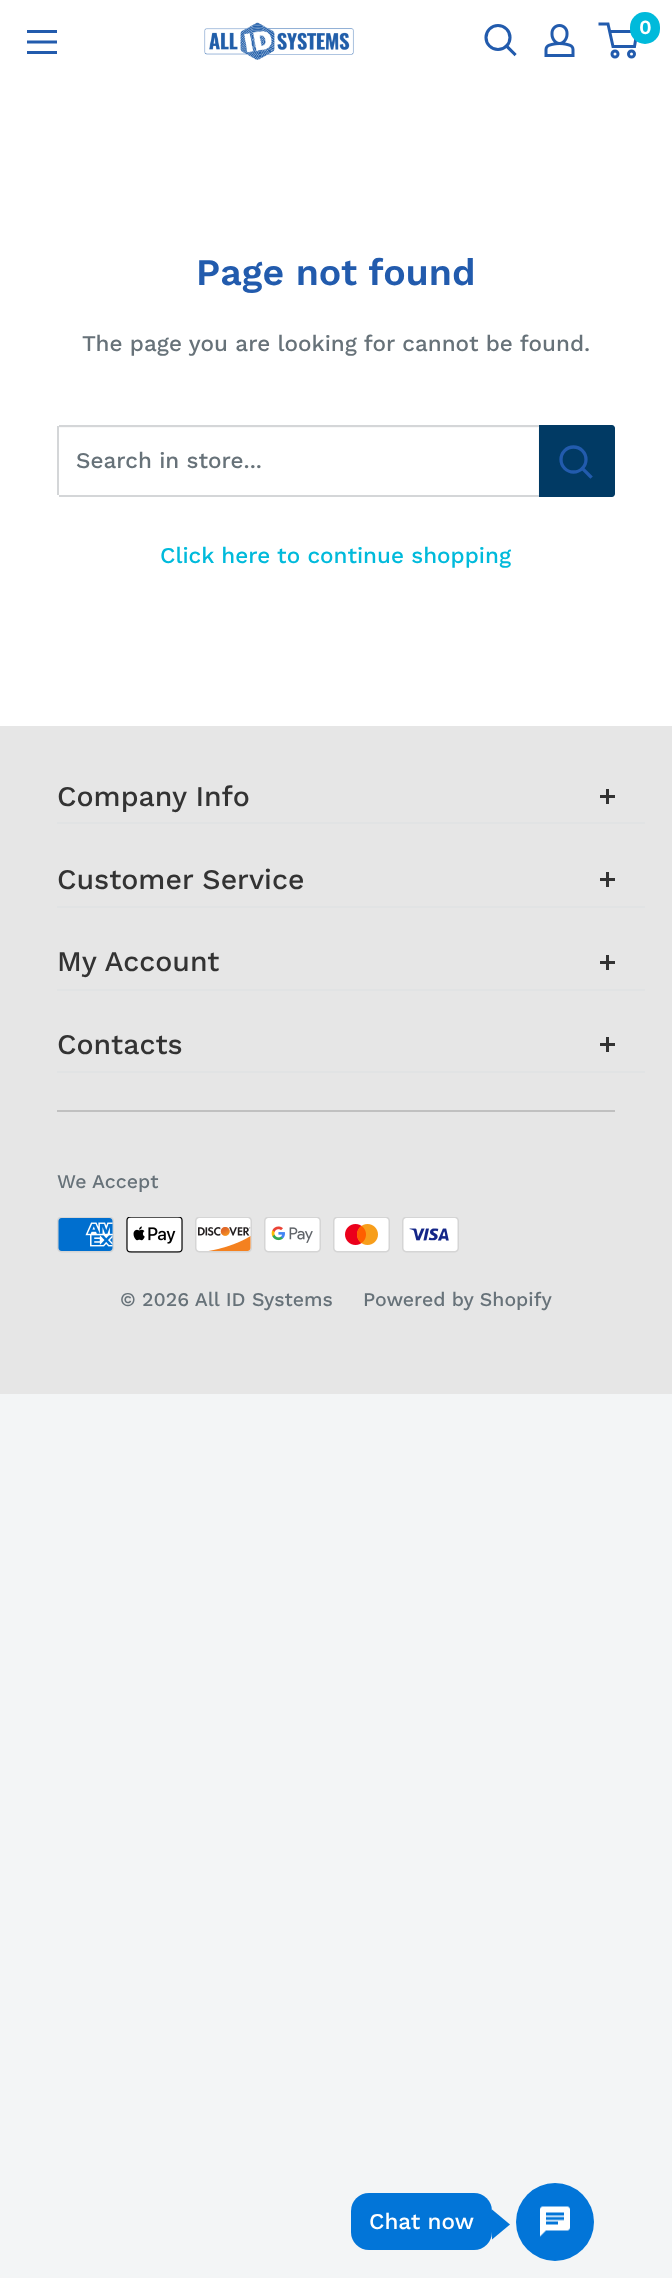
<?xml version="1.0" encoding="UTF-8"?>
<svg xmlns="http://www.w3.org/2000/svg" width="672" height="2278">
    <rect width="100%" height="100%" fill="#F3F5F6"/>
    <rect x="0" y="0" width="672" height="726" fill="#FFFFFF"/>
    <image x="27" y="30" width="30" height="24" href="img_01.png"/>
    <image x="204" y="22" width="150" height="38" href="img_02.png"/>
    <path d="M 514.5 54 L 506.5 46" fill="none" stroke="#225BAD" stroke-width="3.1" stroke-linecap="square"/>
    <circle cx="498" cy="37.5" r="12" fill="none" stroke="#225BAD" stroke-width="3.1"/>
    <image x="544" y="24" width="31" height="33" href="img_03.png"/>
    <circle cx="615" cy="54" r="3" fill="none" stroke="#225BAD" stroke-width="3"/>
    <circle cx="631.5" cy="54" r="3" fill="none" stroke="#225BAD" stroke-width="3"/>
    <path d="M 609.5 31.5 H 637 L 634.5 46.5 H 613 L 608 24 H 598.5" fill="none" stroke="#225BAD" stroke-width="3"/>
    <rect x="630" y="12" width="30" height="32" rx="15" fill="#00BADB"/>
    <text x="639" y="34" font-family="Work Sans" font-size="20" font-weight="600" fill="#FFFFFF">0</text>
    <text x="196" y="285" font-family="Work Sans" font-size="37.5" font-weight="600" fill="#225BAD">Page not found</text>
    <text x="82" y="351" font-family="Work Sans" font-size="22.5" font-weight="500" fill="#677279">The page you are looking for cannot be found.</text>
    <path d="M 60 428 H 538 V 495 H 539 V 426 H 60 C 59 426 59 427 59 428 Z" fill="#F8F8F8"/>
    <rect x="59" y="425" width="480" height="2" fill="#D4D6D8"/>
    <rect x="59" y="495" width="480" height="2" fill="#D4D6D8"/>
    <rect x="57" y="426" width="2" height="69" fill="#D4D6D8"/>
    <text x="76" y="468" font-family="Work Sans" font-size="22.5" font-weight="500" fill="#677279">Search in store...</text>
    <path d="M 539 425 H 612 C 613.5 425 615 426.5 615 428 V 494 C 615 495.5 613.5 497 612 497 H 539 Z" fill="#013A64"/>
    <path d="M 590.5 476.5 L 582.5 468.5" fill="none" stroke="#225BAD" stroke-width="3.3" stroke-linecap="square"/>
    <circle cx="573.5" cy="459.5" r="12.5" fill="none" stroke="#225BAD" stroke-width="3.3"/>
    <text x="160" y="563" font-family="Work Sans" font-size="22.5" font-weight="500" fill="#00BADB">Click here to continue shopping</text>
    <rect x="0" y="726" width="672" height="668" fill="#E6E6E6"/>
    <rect x="57" y="822" width="588" height="2" fill="#E1E3E4"/>
    <text x="57" y="806" font-family="Work Sans" font-size="28.5" font-weight="500" fill="#333333">Company Info</text>
    <rect x="606" y="789" width="3" height="15" fill="#333333"/>
    <rect x="600" y="795" width="15" height="3" fill="#333333"/>
    <rect x="57" y="906" width="588" height="2" fill="#E1E3E4"/>
    <text x="57" y="889" font-family="Work Sans" font-size="28.5" font-weight="500" fill="#333333">Customer Service</text>
    <rect x="606" y="872" width="3" height="15" fill="#333333"/>
    <rect x="600" y="878" width="15" height="3" fill="#333333"/>
    <rect x="57" y="989" width="588" height="2" fill="#E1E3E4"/>
    <text x="57" y="971" font-family="Work Sans" font-size="28.5" font-weight="500" fill="#333333">My Account</text>
    <rect x="606" y="955" width="3" height="15" fill="#333333"/>
    <rect x="600" y="961" width="15" height="3" fill="#333333"/>
    <rect x="57" y="1071" width="588" height="2" fill="#E1E3E4"/>
    <text x="57" y="1054" font-family="Work Sans" font-size="28.5" font-weight="500" fill="#333333">Contacts</text>
    <rect x="606" y="1037" width="3" height="15" fill="#333333"/>
    <rect x="600" y="1043" width="15" height="3" fill="#333333"/>
    <rect x="57" y="1110" width="558" height="2" fill="#C0C0C0"/>
    <text x="57" y="1188" font-family="Work Sans" font-size="19.5" font-weight="500" fill="#677279">We Accept</text>
    <image x="57" y="1217" width="57" height="36" href="img_04.png"/>
    <image x="126" y="1217" width="57" height="36" href="img_05.png"/>
    <image x="195" y="1217" width="57" height="36" href="img_06.png"/>
    <image x="264" y="1217" width="57" height="36" href="img_07.png"/>
    <image x="333" y="1217" width="57" height="36" href="img_08.png"/>
    <image x="402" y="1217" width="57" height="36" href="img_09.png"/>
    <text x="120" y="1306" font-family="Work Sans" font-size="19.5" font-weight="500" fill="#677279">© 2026 All ID Systems</text>
    <text x="363" y="1306" font-family="Work Sans" font-size="19.5" font-weight="500" fill="#677279">Powered by Shopify</text>
    <circle cx="555" cy="2222" r="39" fill="#0275D8"/>
    <rect x="351" y="2193" width="141" height="57" rx="18" fill="#0275D8"/>
    <text x="369" y="2229" font-family="Work Sans" font-size="22.5" font-weight="500" fill="#FFFFFF">Chat now</text>
    <path d="M 492 2239.5 V 2209.5 L 510 2224.5 Z" fill="#0275D8"/>
    <image x="540" y="2206" width="30" height="31" href="img_10.png"/>
</svg>
